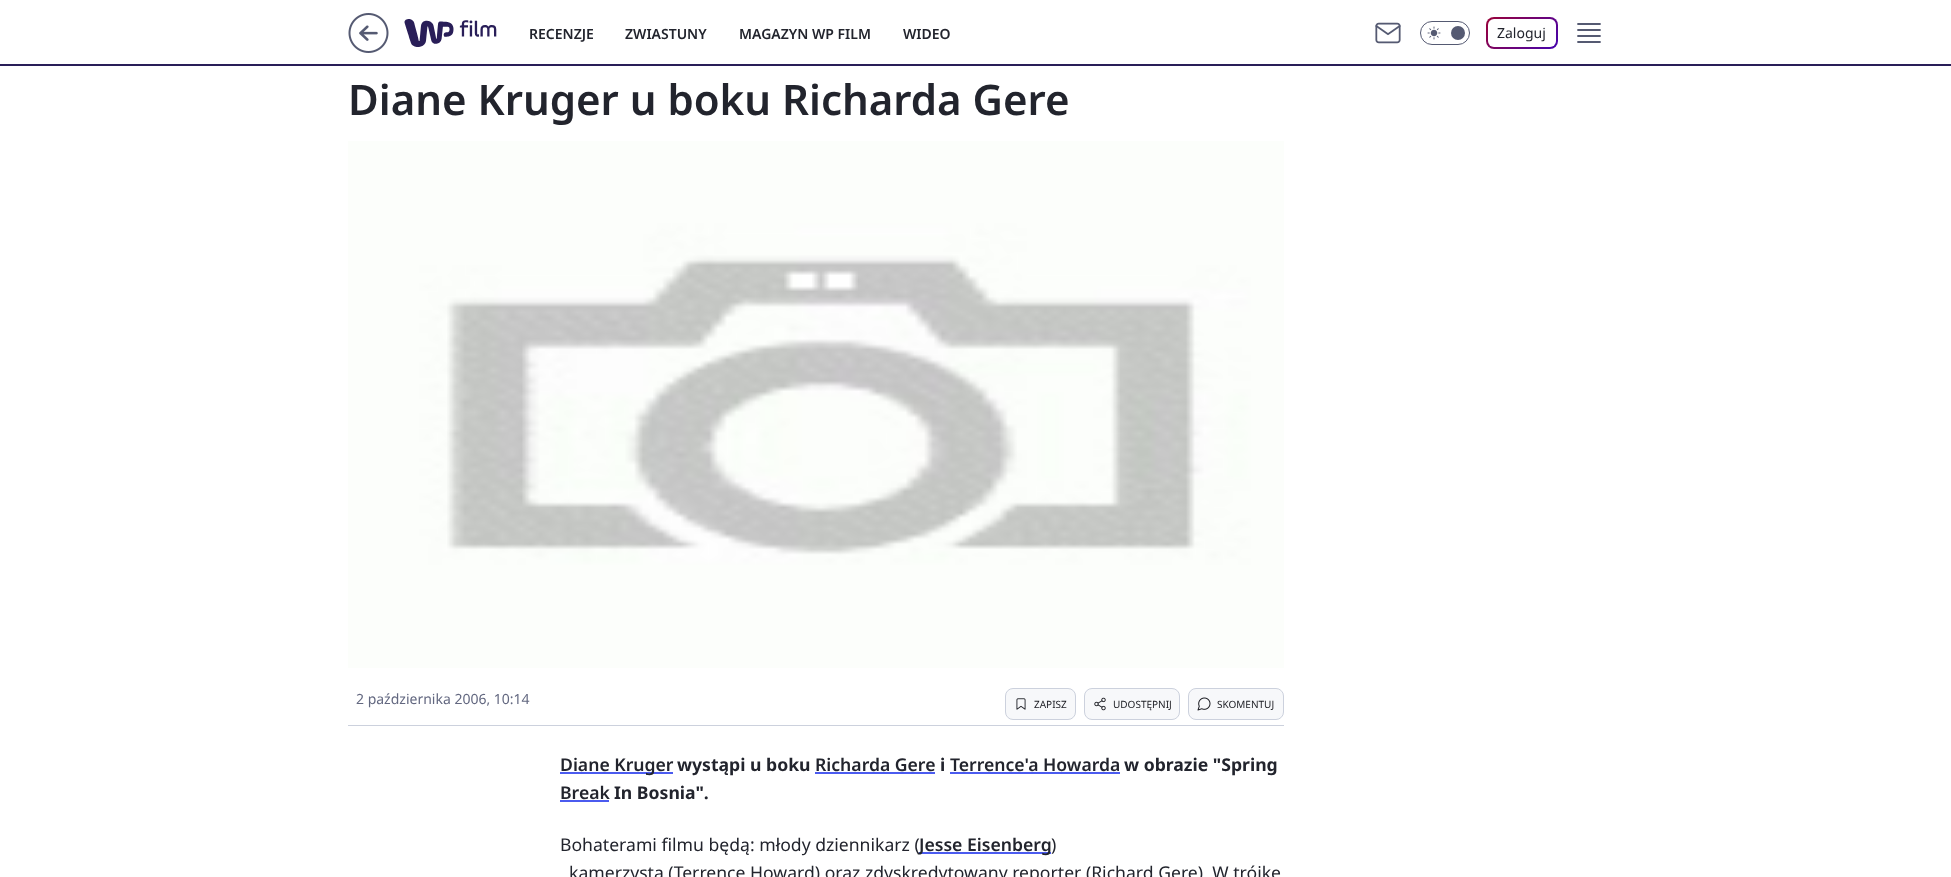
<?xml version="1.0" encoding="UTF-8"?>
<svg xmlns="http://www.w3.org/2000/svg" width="1951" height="877">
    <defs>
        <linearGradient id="g1" gradientUnits="userSpaceOnUse" x1="1496" y1="7" x2="1548" y2="59"><stop offset="0" stop-color="#9B0238"/><stop offset="1" stop-color="#4404AE"/></linearGradient>
    </defs>
    <rect width="100%" height="100%" fill="#FFFFFF"/>
    <image x="348" y="13" width="41" height="40" href="img_01.png"/>
    <image x="404" y="19" width="93" height="28" href="img_02.png"/>
    <text x="529" y="39" font-family="Noto Sans" font-size="14" font-weight="600" fill="#22242D">RECENZJE</text>
    <text x="625" y="39" font-family="Noto Sans" font-size="14" font-weight="600" fill="#22242D">ZWIASTUNY</text>
    <text x="739" y="39" font-family="Noto Sans" font-size="14" font-weight="600" fill="#22242D">MAGAZYN WP FILM</text>
    <text x="903" y="39" font-family="Noto Sans" font-size="14" font-weight="600" fill="#22242D">WIDEO</text>
    <image x="1375" y="22" width="26" height="22" href="img_03.png"/>
    <rect x="1420.5" y="21.5" width="49" height="23" rx="11.5" fill="none" stroke="#555A72"/>
    <image x="1427" y="26" width="14" height="14" href="img_04.png"/>
    <circle cx="1458" cy="33" r="7" fill="#555A72"/>
    <rect x="1486" y="17" width="72" height="32" rx="8" fill="url(#g1)"/>
    <rect x="1488" y="19" width="68" height="28" rx="6" fill="#FFFFFF"/>
    <text x="1497" y="38" font-family="Noto Sans" font-size="14" fill="#22242D">Zaloguj</text>
    <path d="M 1578 36 H 1600 M 1578 30 H 1600 M 1578 24 H 1600 M 1578 42 H 1600" fill="none" stroke="#555A72" stroke-width="1.8" stroke-linecap="round" stroke-linejoin="round"/>
    <rect x="0" y="64" width="1951" height="2" fill="#291E58"/>
    <text x="348" y="115" font-family="Noto Sans" font-size="42" font-weight="600" fill="#22242D">Diane Kruger u boku Richarda Gere</text>
    <image x="348" y="141" width="936" height="527" href="img_05.png"/>
    <rect x="348" y="725" width="936" height="1" fill="#CCD1DD"/>
    <text x="356" y="704" font-family="Noto Sans" font-size="14" fill="#636880">2 października 2006, 10:14</text>
    <rect x="1005.5" y="688.5" width="70" height="31" rx="7.5" fill="#F7F8FA" stroke="#CCD1DD"/>
    <image x="1016" y="698" width="10" height="12" href="img_06.png"/>
    <text x="1034" y="708" font-family="Noto Sans" font-size="10" fill="#1B1C22">ZAPISZ</text>
    <rect x="1084.5" y="688.5" width="95" height="31" rx="7.5" fill="#F7F8FA" stroke="#CCD1DD"/>
    <image x="1094" y="697" width="12" height="14" href="img_07.png"/>
    <text x="1113" y="708" font-family="Noto Sans" font-size="10" fill="#1B1C22">UDOSTĘPNIJ</text>
    <rect x="1188.5" y="688.5" width="95" height="31" rx="7.5" fill="#F7F8FA" stroke="#CCD1DD"/>
    <image x="1197" y="697" width="14" height="14" href="img_08.png"/>
    <text x="1217" y="708" font-family="Noto Sans" font-size="10" fill="#1B1C22">SKOMENTUJ</text>
    <rect x="560" y="772" width="113" height="2" fill="#4B5BEF"/>
    <text x="560" y="771" font-family="Noto Sans" font-size="17.6" font-weight="600" fill="#22242D">Diane Kruger</text>
    <text x="677" y="771" font-family="Noto Sans" font-size="17.6" font-weight="700" fill="#22242D">wystąpi u boku</text>
    <text x="815" y="771" font-family="Noto Sans" font-size="17.6" font-weight="600" fill="#22242D">Richarda Gere</text>
    <rect x="815" y="772" width="120" height="2" fill="#4B5BEF"/>
    <text x="940" y="771" font-family="Noto Sans" font-size="17.6" font-weight="700" fill="#22242D">i</text>
    <text x="950" y="771" font-family="Noto Sans" font-size="17.6" font-weight="600" fill="#22242D">Terrence'a Howarda</text>
    <rect x="950" y="772" width="170" height="2" fill="#4B5BEF"/>
    <text x="1124" y="771" font-family="Noto Sans" font-size="17.6" font-weight="700" fill="#22242D">w obrazie "Spring</text>
    <text x="560" y="799" font-family="Noto Sans" font-size="17.6" font-weight="600" fill="#22242D">Break</text>
    <rect x="560" y="800" width="49" height="2" fill="#4B5BEF"/>
    <text x="614" y="799" font-family="Noto Sans" font-size="17.6" font-weight="700" fill="#22242D">In Bosnia".</text>
    <text x="560" y="851" font-family="Noto Sans" font-size="17.6" fill="#22242D">Bohaterami filmu będą: młody dziennikarz (</text>
    <rect x="919" y="852" width="132" height="2" fill="#4B5BEF"/>
    <text x="919" y="851" font-family="Noto Sans" font-size="17.6" font-weight="600" fill="#22242D">Jesse Eisenberg</text>
    <text x="1051" y="851" font-family="Noto Sans" font-size="17.6" fill="#22242D">)</text>
    <text x="569" y="879" font-family="Noto Sans" font-size="17.6" fill="#22242D">kamerzysta (Terrence Howard) oraz zdyskredytowany reporter (Richard Gere). W trójkę</text>
</svg>
